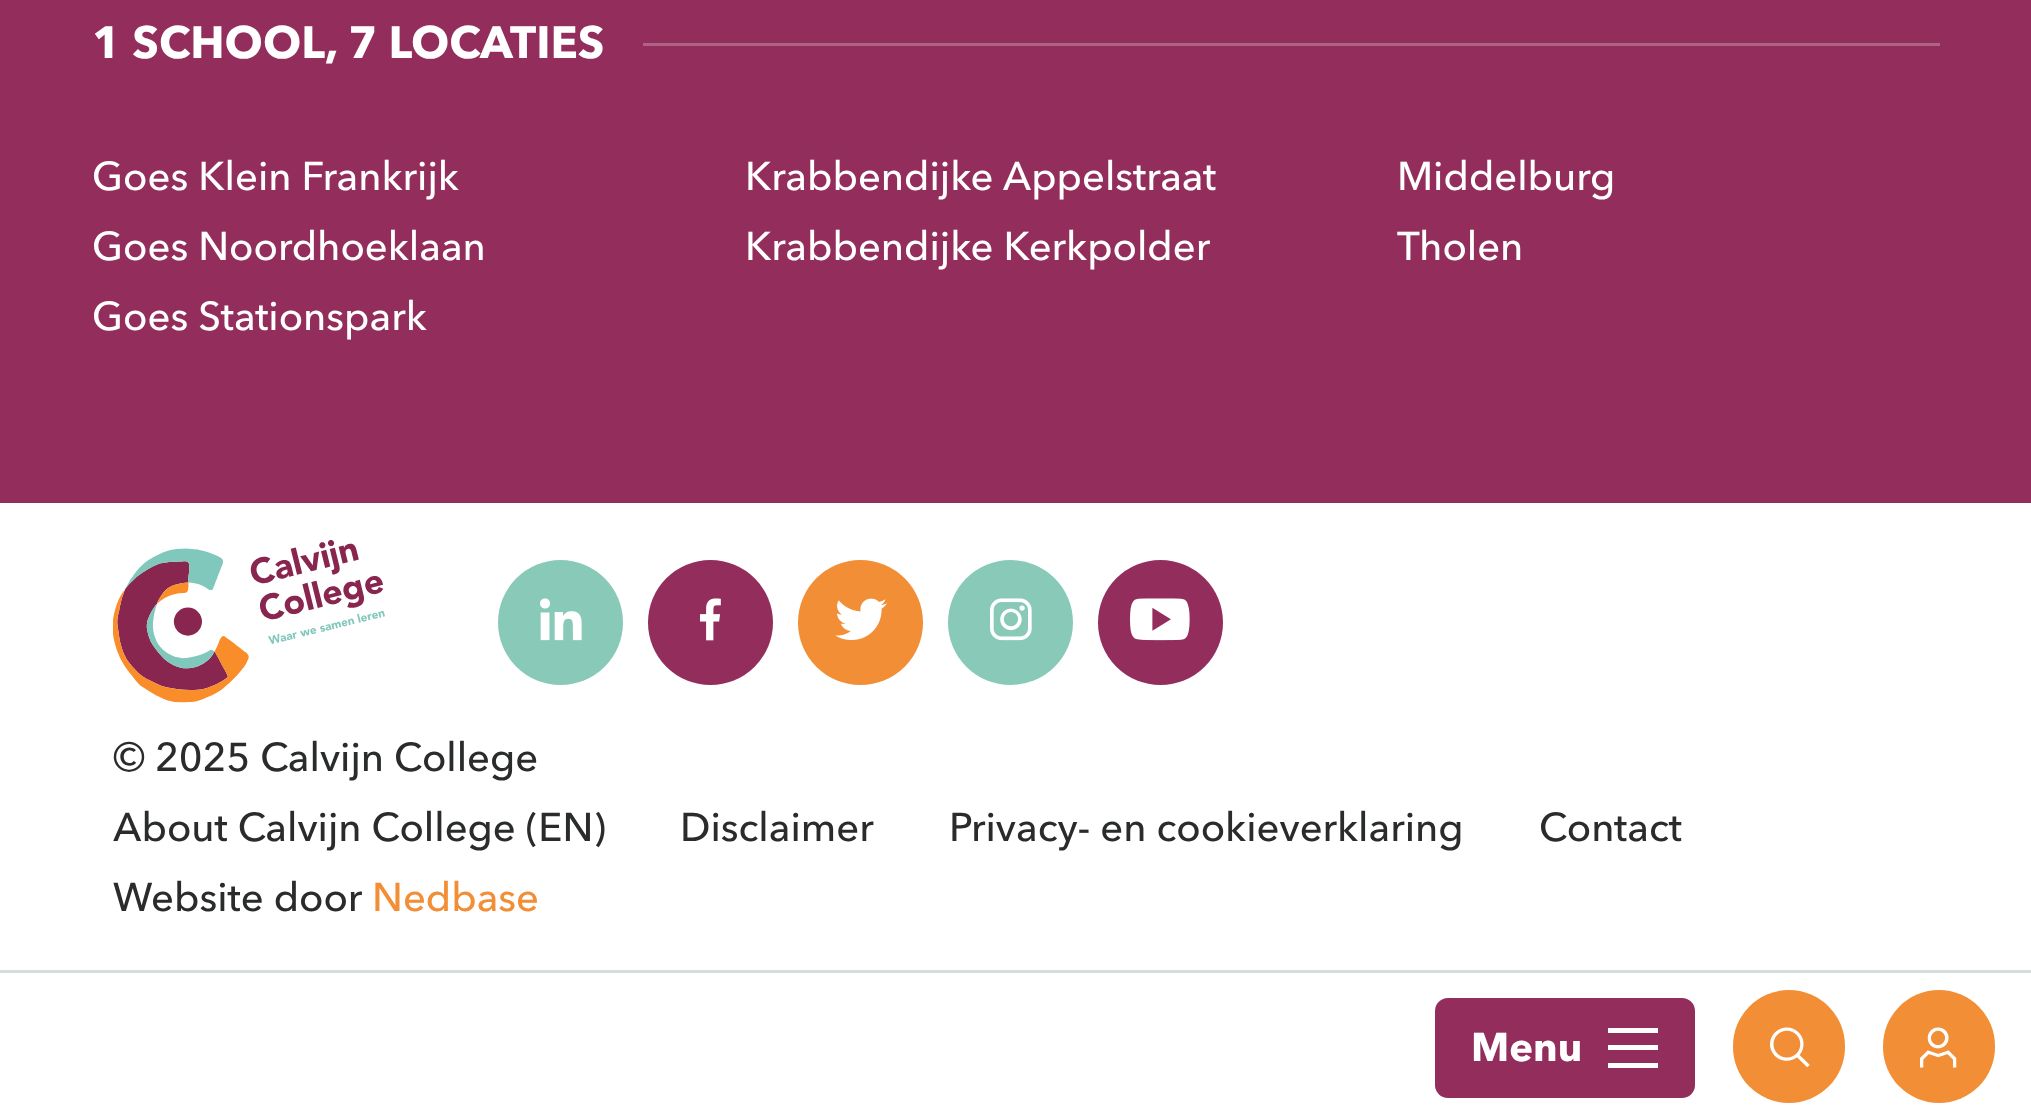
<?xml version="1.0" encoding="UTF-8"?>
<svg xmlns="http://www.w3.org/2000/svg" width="2031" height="1119">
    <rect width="100%" height="100%" fill="#FFFFFF"/>
    <rect x="0" y="0" width="2031" height="503" fill="#932D5B"/>
    <text x="92" y="58" font-family="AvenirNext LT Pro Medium" font-size="45" font-weight="700" fill="#FFFFFF">1 SCHOOL, 7 LOCATIES</text>
    <rect x="643" y="43" width="1297" height="3" fill="#AE6284"/>
    <text x="92" y="190" font-family="AvenirNext LT Pro Medium" font-size="40" font-weight="500" fill="#FFFFFF">Goes Klein Frankrijk</text>
    <text x="745" y="190" font-family="AvenirNext LT Pro Medium" font-size="40" font-weight="500" fill="#FFFFFF">Krabbendijke Appelstraat</text>
    <text x="1397" y="190" font-family="AvenirNext LT Pro Medium" font-size="40" font-weight="500" fill="#FFFFFF">Middelburg</text>
    <text x="92" y="260" font-family="AvenirNext LT Pro Medium" font-size="40" font-weight="500" fill="#FFFFFF">Goes Noordhoeklaan</text>
    <text x="745" y="260" font-family="AvenirNext LT Pro Medium" font-size="40" font-weight="500" fill="#FFFFFF">Krabbendijke Kerkpolder</text>
    <text x="1397" y="260" font-family="AvenirNext LT Pro Medium" font-size="40" font-weight="500" fill="#FFFFFF">Tholen</text>
    <text x="92" y="330" font-family="AvenirNext LT Pro Medium" font-size="40" font-weight="500" fill="#FFFFFF">Goes Stationspark</text>
    <image x="113" y="540" width="272" height="163" href="img_01.png"/>
    <circle cx="560.5" cy="622.5" r="62.5" fill="#88CAB7"/>
    <image x="540" y="598" width="42" height="43" href="img_02.png"/>
    <circle cx="710.5" cy="622.5" r="62.5" fill="#932D5B"/>
    <image x="700" y="598" width="21" height="43" href="img_03.png"/>
    <circle cx="860.5" cy="622.5" r="62.5" fill="#F18E36"/>
    <image x="835" y="598" width="52" height="42" href="img_04.png"/>
    <circle cx="1010.5" cy="622.5" r="62.5" fill="#88CAB7"/>
    <image x="990" y="598" width="42" height="43" href="img_05.png"/>
    <circle cx="1160.5" cy="622.5" r="62.5" fill="#932D5B"/>
    <image x="1130" y="598" width="60" height="43" href="img_06.png"/>
    <text font-family="AvenirNext LT Pro Medium" font-size="40" font-weight="500" fill="#2A2B2B">
        <tspan x="113" y="771">© 2025 Calvijn College</tspan>
        <tspan x="113" y="841">About Calvijn College (EN)</tspan>
    </text>
    <text x="680" y="841" font-family="AvenirNext LT Pro Medium" font-size="40" font-weight="500" fill="#2A2B2B">Disclaimer</text>
    <text x="949" y="841" font-family="AvenirNext LT Pro Medium" font-size="40" font-weight="500" fill="#2A2B2B">Privacy- en cookieverklaring</text>
    <text x="1539" y="841" font-family="AvenirNext LT Pro Medium" font-size="40" font-weight="500" fill="#2A2B2B">Contact</text>
    <text x="113" y="911" font-family="AvenirNext LT Pro Medium" font-size="40" font-weight="500" fill="#2A2B2B">Website door</text>
    <text x="372" y="911" font-family="AvenirNext LT Pro Medium" font-size="40" font-weight="500" fill="#F18E36">Nedbase</text>
    <rect x="0" y="970" width="2031" height="3" fill="#D7DDDB"/>
    <rect x="1435" y="998" width="260" height="100" rx="13" fill="#932D5B"/>
    <text x="1471" y="1061" font-family="AvenirNext LT Pro Medium" font-size="40" font-weight="700" fill="#FFFFFF">Menu</text>
    <rect x="1608" y="1045" width="50" height="5" fill="#FFFFFF"/>
    <rect x="1608" y="1028" width="50" height="5" fill="#FFFFFF"/>
    <rect x="1608" y="1063" width="50" height="5" fill="#FFFFFF"/>
    <rect x="1733" y="990" width="112" height="113" rx="56" fill="#F18E36"/>
    <image x="1770" y="1027" width="40" height="41" href="img_07.png"/>
    <rect x="1883" y="990" width="112" height="113" rx="56" fill="#F18E36"/>
    <image x="1920" y="1027" width="37" height="41" href="img_08.png"/>
</svg>
